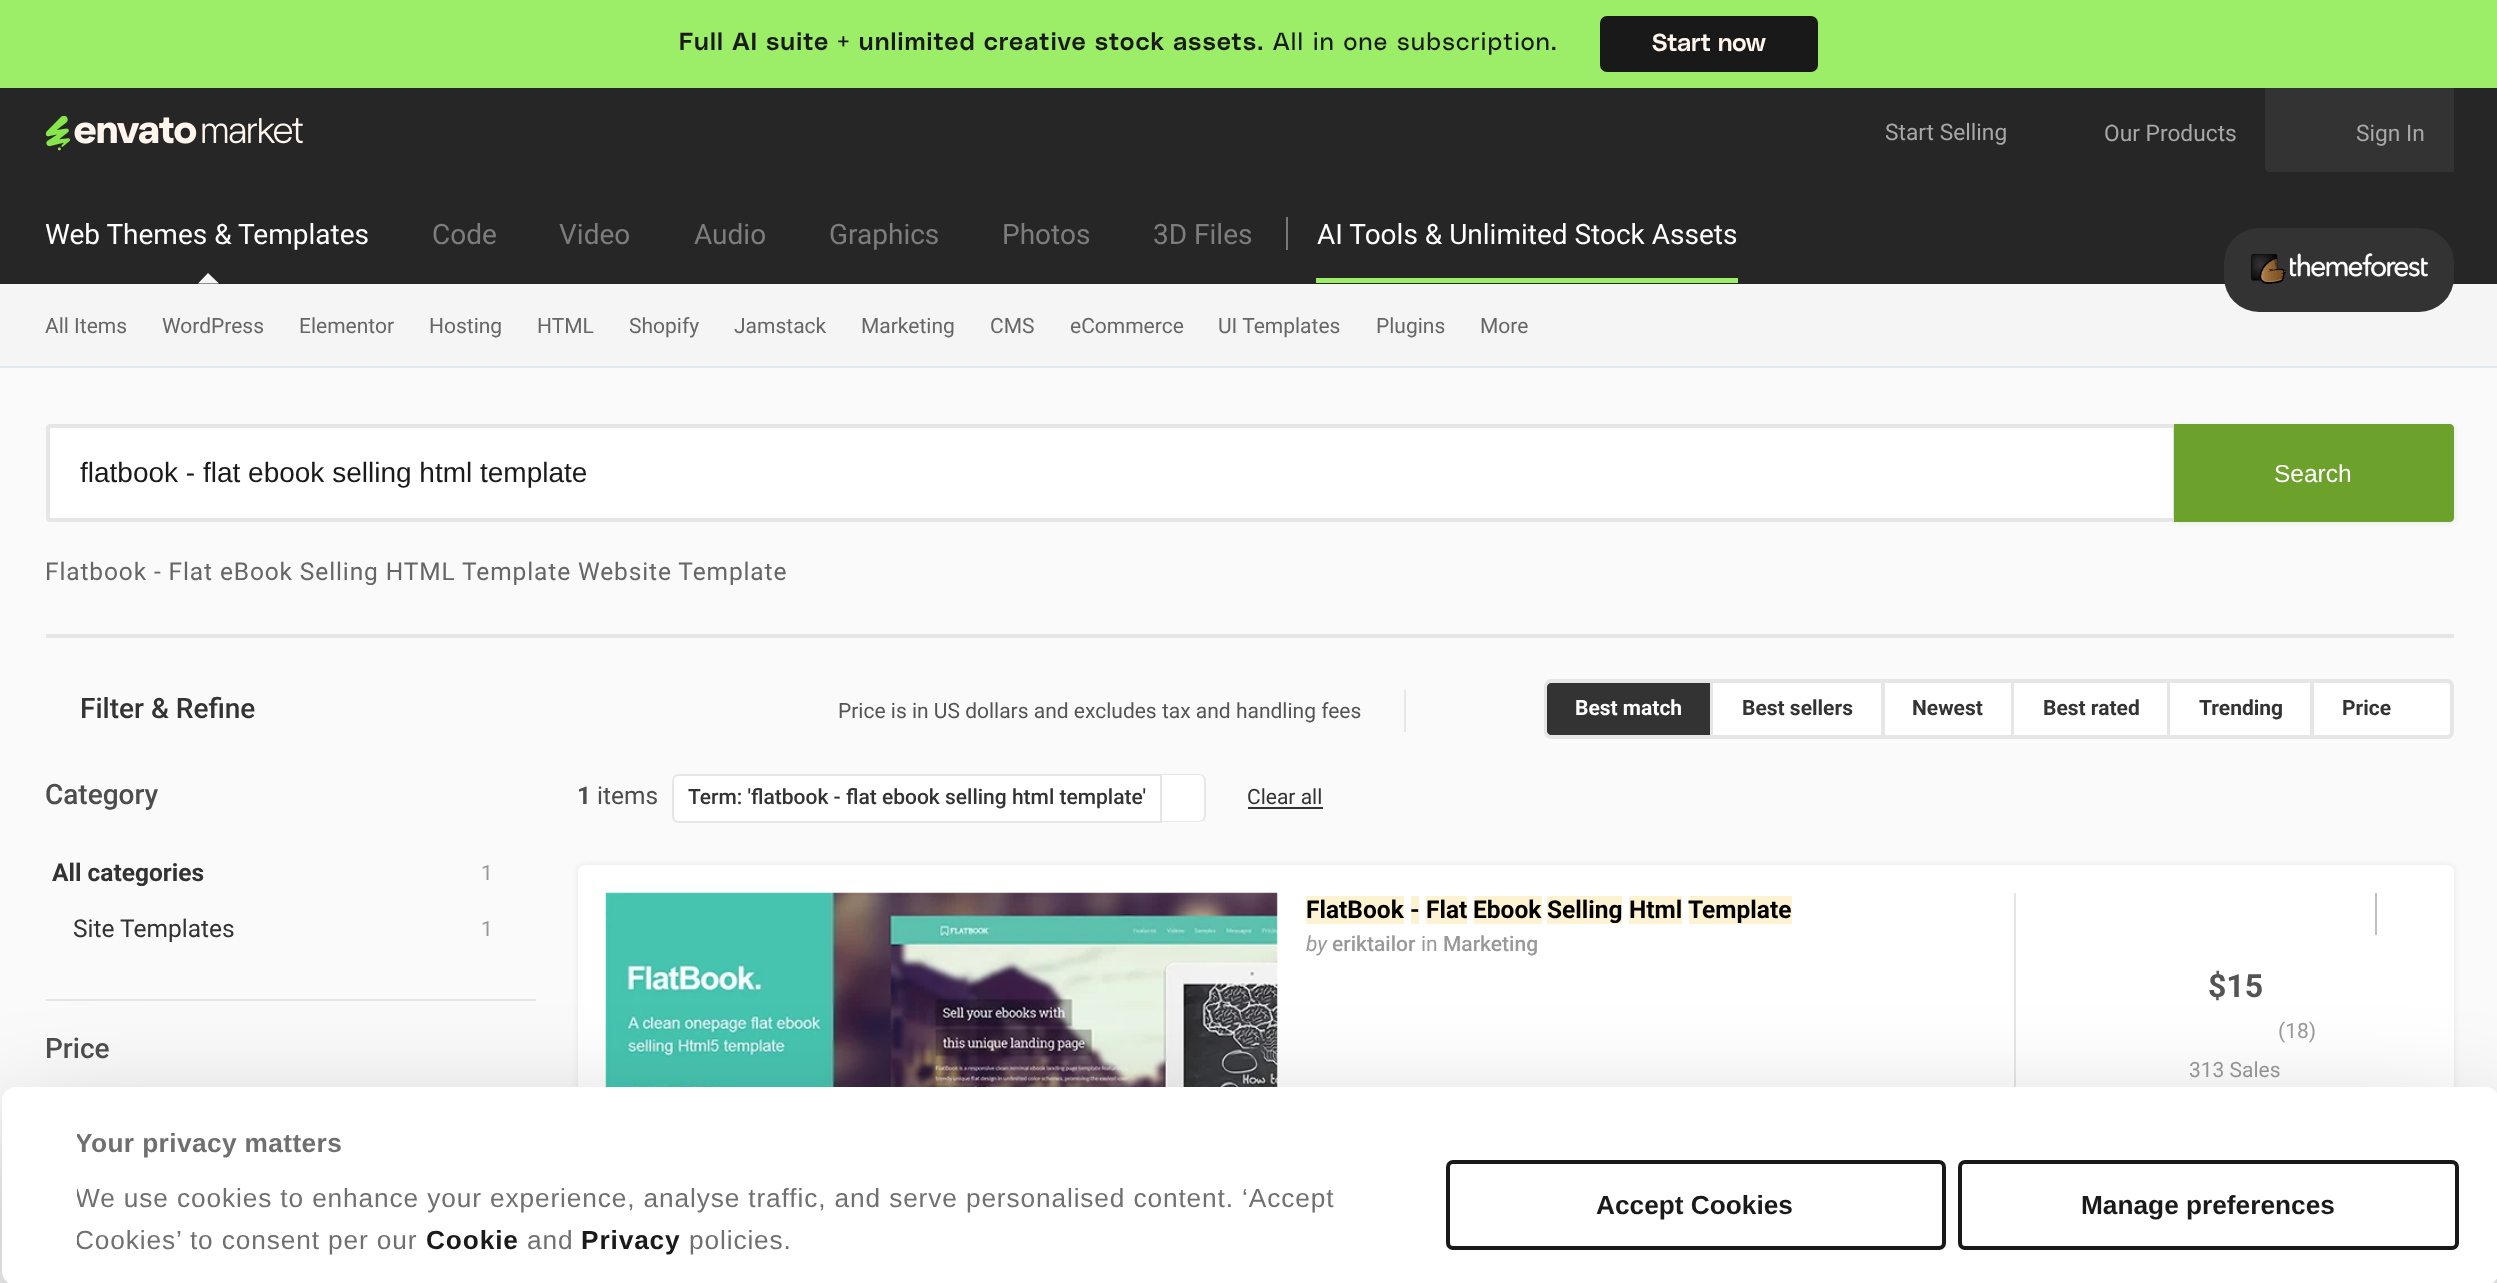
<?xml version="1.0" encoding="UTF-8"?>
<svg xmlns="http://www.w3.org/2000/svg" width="2497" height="1283">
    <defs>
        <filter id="blur1" x="-50%" y="-200%" width="200%" height="500%"><feGaussianBlur stdDeviation="2.5"/></filter>
        <filter id="blur2" x="-50%" y="-200%" width="200%" height="500%"><feGaussianBlur stdDeviation="3.5"/></filter>
        <clipPath id="clip1"><path d="M 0 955 H 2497 V 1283 H 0 Z M 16 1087 H 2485 C 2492.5 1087 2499 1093.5 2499 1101 V 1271 C 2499 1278.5 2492.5 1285 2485 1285 H 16 C 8.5 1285 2 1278.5 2 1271 V 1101 C 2 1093.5 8.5 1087 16 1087 Z" clip-rule="evenodd"/></clipPath>
        <filter id="blur3" x="-50%" y="-200%" width="200%" height="500%"><feGaussianBlur stdDeviation="61"/></filter>
        <clipPath id="clip2"><rect x="77" y="1124" width="1358" height="138"/></clipPath>
    </defs>
    <rect width="100%" height="100%" fill="#FAFAFA"/>
    <rect x="0" y="0" width="2497" height="88" fill="#9CEE69"/>
    <text x="679" y="50" font-family="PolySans" font-size="24.5" font-weight="600" letter-spacing="1.4" fill="#1A1A1A">Full AI suite + unlimited creative stock assets.</text>
    <text x="1273" y="50" font-family="PolySans" font-size="24.5" letter-spacing="1.4" fill="#1A1A1A">All in one subscription.</text>
    <rect x="1600" y="16" width="218" height="56" rx="7" fill="#191919"/>
    <text x="1652" y="51" font-family="PolySans" font-size="24.5" font-weight="600" fill="#FFF5ED">Start now</text>
    <rect x="0" y="88" width="2497" height="196" fill="#262626"/>
    <image x="46" y="116" width="257" height="35" href="img_01.png"/>
    <text x="1885" y="140" font-family="Roboto" font-size="22.75" fill="#A8A8A8">Start Selling</text>
    <text x="2104" y="141" font-family="Roboto" font-size="22.75" fill="#A8A8A8">Our Products</text>
    <path d="M 2265 88 H 2335 V 172 H 2270 C 2267 172 2265 170 2265 167 Z" fill="#333333"/>
    <rect x="2335" y="88" width="119" height="84" fill="#333333"/>
    <text x="2356" y="141" font-family="Roboto" font-size="22.75" fill="#A8A8A8">Sign In</text>
    <text x="45" y="244" font-family="Roboto" font-size="28" fill="#FFFFFF">Web Themes &amp; Templates</text>
    <path d="M 219 283.5 H 198 L 208 273 Z" fill="#F5F5F5"/>
    <text x="432" y="244" font-family="Roboto" font-size="28" fill="#7D7D7D">Code</text>
    <text x="559" y="244" font-family="Roboto" font-size="28" fill="#7D7D7D">Video</text>
    <text x="694" y="244" font-family="Roboto" font-size="28" fill="#7D7D7D">Audio</text>
    <text x="829" y="244" font-family="Roboto" font-size="28" fill="#7D7D7D">Graphics</text>
    <text x="1002" y="244" font-family="Roboto" font-size="28" fill="#7D7D7D">Photos</text>
    <text x="1153" y="244" font-family="Roboto" font-size="28" fill="#7D7D7D">3D Files</text>
    <text x="1317" y="244" font-family="Roboto" font-size="28" fill="#FFFFFF">AI Tools &amp; Unlimited Stock Assets</text>
    <rect x="1286" y="217" width="2" height="33" fill="#797979"/>
    <rect x="1316" y="278" width="422" height="5" fill="#9CEE69"/>
    <rect x="0" y="284" width="2497" height="82" fill="#F5F5F5"/>
    <rect x="2224" y="228" width="230" height="84" rx="35" fill="#333333"/>
    <image x="2251" y="253" width="177" height="31" href="img_02.png"/>
    <rect x="0" y="366" width="2497" height="2" fill="#E2E9EE"/>
    <text x="45" y="333" font-family="Roboto" font-size="21" fill="#666666">All Items</text>
    <text x="162" y="333" font-family="Roboto" font-size="21" fill="#666666">WordPress</text>
    <text x="299" y="333" font-family="Roboto" font-size="21" fill="#666666">Elementor</text>
    <text x="429" y="333" font-family="Roboto" font-size="21" fill="#666666">Hosting</text>
    <text x="537" y="333" font-family="Roboto" font-size="21" fill="#666666">HTML</text>
    <text x="629" y="333" font-family="Roboto" font-size="21" fill="#666666">Shopify</text>
    <text x="734" y="333" font-family="Roboto" font-size="21" fill="#666666">Jamstack</text>
    <text x="861" y="333" font-family="Roboto" font-size="21" fill="#666666">Marketing</text>
    <text x="990" y="333" font-family="Roboto" font-size="21" fill="#666666">CMS</text>
    <text x="1070" y="333" font-family="Roboto" font-size="21" fill="#666666">eCommerce</text>
    <text x="1218" y="333" font-family="Roboto" font-size="21" fill="#666666">UI Templates</text>
    <text x="1376" y="333" font-family="Roboto" font-size="21" fill="#666666">Plugins</text>
    <text x="1480" y="333" font-family="Roboto" font-size="21" fill="#666666">More</text>
    <path d="M 50 426 H 2175 V 520 H 50 C 49 520 48 519 48 518 V 428 C 48 427 49 426 50 426 Z" fill="#FFFFFF" stroke="#E6E6E6" stroke-width="4"/>
    <text x="80" y="482" font-family="Liberation Sans" font-size="28" fill="#1A1A1A">flatbook - flat ebook selling html template</text>
    <rect x="2175" y="425" width="280" height="98" rx="4" fill="#000000" fill-opacity="0.07" filter="url(#blur1)"/>
    <path d="M 2174 424 H 2450 C 2452 424 2454 426 2454 428 V 518 C 2454 520 2452 522 2450 522 H 2174 Z" fill="#6CA12B"/>
    <text x="2274" y="482" font-family="Liberation Sans" font-size="24.5" fill="#FFFFFF">Search</text>
    <text x="45" y="580" font-family="Roboto" font-size="24.5" letter-spacing="0.88" fill="#666666">Flatbook - Flat eBook Selling HTML Template Website Template</text>
    <rect x="46" y="634" width="2408" height="4" fill="#E6E6E6"/>
    <text x="80" y="718" font-family="Roboto" font-size="28" font-weight="500" fill="#333333">Filter &amp; Refine</text>
    <text x="838" y="718" font-family="Roboto" font-size="21" fill="#545454">Price is in US dollars and excludes tax and handling fees</text>
    <rect x="1404" y="690" width="2" height="42" fill="#E6E6E6"/>
    <rect x="1546" y="681" width="906" height="56" rx="5" fill="none" stroke="#E6E6E6" stroke-width="4"/>
    <path d="M 1551 683 H 1713 V 735 H 1551 C 1549 735 1547 733 1547 731 V 687 C 1547 685 1549 683 1551 683 Z" fill="#333333"/>
    <rect x="1710" y="683" width="3" height="52" fill="#E6E6E6"/>
    <text x="1575" y="715" font-family="Roboto" font-size="21" font-weight="700" fill="#FFFFFF">Best match</text>
    <rect x="1713" y="683" width="168" height="52" fill="#FFFFFF"/>
    <rect x="1881" y="683" width="4" height="52" fill="#E6E6E6"/>
    <text x="1742" y="715" font-family="Roboto" font-size="21" font-weight="700" fill="#333333">Best sellers</text>
    <rect x="1885" y="683" width="126" height="52" fill="#FFFFFF"/>
    <rect x="2011" y="683" width="3" height="52" fill="#E6E6E6"/>
    <text x="1912" y="715" font-family="Roboto" font-size="21" font-weight="700" fill="#333333">Newest</text>
    <rect x="2014" y="683" width="153" height="52" fill="#FFFFFF"/>
    <rect x="2167" y="683" width="3" height="52" fill="#E6E6E6"/>
    <text x="2043" y="715" font-family="Roboto" font-size="21" font-weight="700" fill="#333333">Best rated</text>
    <rect x="2170" y="683" width="140" height="52" fill="#FFFFFF"/>
    <rect x="2310" y="683" width="4" height="52" fill="#E6E6E6"/>
    <text x="2199" y="715" font-family="Roboto" font-size="21" font-weight="700" fill="#333333">Trending</text>
    <path d="M 2314 683 H 2446 C 2448 683 2450 685 2450 687 V 731 C 2450 733 2448 735 2446 735 H 2314 Z" fill="#FFFFFF"/>
    <text x="2342" y="715" font-family="Roboto" font-size="21" font-weight="700" fill="#333333">Price</text>
    <rect x="46" y="999" width="490" height="2" fill="#E6E6E6"/>
    <text x="45" y="804" font-family="Roboto" font-size="28" font-weight="500" fill="#4D4D4D">Category</text>
    <text x="52" y="881" font-family="Roboto" font-size="24.5" font-weight="700" fill="#333333">All categories</text>
    <text x="481" y="880" font-family="Roboto" font-size="21" fill="#999999">1</text>
    <text x="73" y="937" font-family="Roboto" font-size="24.5" fill="#333333">Site Templates</text>
    <text x="481" y="936" font-family="Roboto" font-size="21" fill="#999999">1</text>
    <text x="45" y="1058" font-family="Roboto" font-size="28" font-weight="500" fill="#4D4D4D">Price</text>
    <text x="577" y="804" font-family="Roboto" font-size="24.5" font-weight="700" fill="#4D4D4D">1</text>
    <text x="597" y="804" font-family="Roboto" font-size="24.5" fill="#4D4D4D">items</text>
    <rect x="672" y="774" width="534" height="49" rx="7" fill="#FFFFFF"/>
    <path d="M 679 775 H 1161 V 822 H 679 C 675.5 822 673 819.5 673 816 V 781 C 673 777.5 675.5 775 679 775 Z" fill="none" stroke="#E6E6E6" stroke-width="2"/>
    <text x="688" y="804" font-family="Roboto" font-size="21" font-weight="500" fill="#333333">Term: 'flatbook - flat ebook selling html template'</text>
    <path d="M 1162 774 H 1199 C 1203 774 1206 777 1206 780 V 816 C 1206 819 1203 822 1199 822 H 1162 Z M 1162 775 H 1199 C 1202 775 1204 778 1204 780 V 816 C 1204 818 1202 821 1199 821 H 1162 Z" fill="#E6E6E6" fill-rule="evenodd"/>
    <text x="1247" y="804" font-family="Roboto" font-size="21" fill="#333333">Clear all</text>
    <rect x="1248" y="807" width="75" height="2" fill="#333333"/>
    <rect x="578" y="865" width="1876" height="397" rx="7" fill="#E6E6E6" filter="url(#blur2)"/>
    <rect x="578" y="865" width="1876" height="397" rx="7" fill="#FFFFFF"/>
    <image x="605" y="892" width="673" height="195" href="img_03.png"/>
    <rect x="1306" y="896" width="98" height="28" fill="#FDF2D1"/>
    <text x="1306" y="918" font-family="Roboto" font-size="24.5" font-weight="700" fill="#000000">FlatBook</text>
    <rect x="1411" y="896" width="8" height="28" fill="#FDF2D1"/>
    <text x="1410" y="918" font-family="Roboto" font-size="24.5" font-weight="700" fill="#000000">-</text>
    <rect x="1426" y="896" width="41" height="28" fill="#FDF2D1"/>
    <text x="1426" y="918" font-family="Roboto" font-size="24.5" font-weight="700" fill="#000000">Flat</text>
    <rect x="1474" y="896" width="68" height="28" fill="#FDF2D1"/>
    <text x="1473" y="918" font-family="Roboto" font-size="24.5" font-weight="700" fill="#000000">Ebook</text>
    <rect x="1547" y="896" width="75" height="28" fill="#FDF2D1"/>
    <text x="1547" y="918" font-family="Roboto" font-size="24.5" font-weight="700" fill="#000000">Selling</text>
    <rect x="1629" y="896" width="53" height="28" fill="#FDF2D1"/>
    <text x="1629" y="918" font-family="Roboto" font-size="24.5" font-weight="700" fill="#000000">Html</text>
    <rect x="1689" y="896" width="103" height="28" fill="#FDF2D1"/>
    <text x="1688" y="918" font-family="Roboto" font-size="24.5" font-weight="700" fill="#000000">Template</text>
    <text x="1306" y="951" font-family="Roboto" font-size="21" font-style="italic" fill="#999999">by</text>
    <text x="1332" y="951" font-family="Roboto" font-size="21" font-weight="500" fill="#999999">eriktailor</text>
    <text x="1421" y="951" font-family="Roboto" font-size="21" fill="#999999">in</text>
    <text x="1443" y="951" font-family="Roboto" font-size="21" font-weight="500" fill="#999999">Marketing</text>
    <rect x="2014" y="893" width="2" height="194" fill="#E6E6E6"/>
    <rect x="2375" y="893" width="2" height="42" fill="#C0C0C0"/>
    <text x="2208" y="997" font-family="Roboto" font-size="32" font-weight="700" fill="#545454">$15</text>
    <text x="2278" y="1038" font-family="Roboto" font-size="21" fill="#999999">(18)</text>
    <text x="2189" y="1077" font-family="Roboto" font-size="21" fill="#999999">313 Sales</text>
    <g clip-path="url(#clip1)">
        <rect x="2" y="1139" width="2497" height="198" rx="14" fill="#000000" fill-opacity="0.3" filter="url(#blur3)"/>
    </g>
    <rect x="2" y="1087" width="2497" height="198" rx="14" fill="#FFFFFF"/>
    <g clip-path="url(#clip2)">
        <text x="75" y="1152" font-family="Liberation Sans" font-size="26.25" font-weight="700" letter-spacing="0.4" fill="#707070">Your privacy matters</text>
        <text font-family="Liberation Sans" font-size="26.25" letter-spacing="0.88" fill="#707070">
            <tspan x="75" y="1207">We use cookies to enhance your experience, analyse traffic, and serve personalised content. ‘Accept</tspan>
            <tspan x="75" y="1249">Cookies’ to consent per our</tspan>
        </text>
    </g>
    <text x="426" y="1249" font-family="Liberation Sans" font-size="26.25" font-weight="700" letter-spacing="0.88" fill="#1A1A1A">Cookie</text>
    <text x="527" y="1249" font-family="Liberation Sans" font-size="26.25" letter-spacing="0.88" fill="#707070">and</text>
    <text x="581" y="1249" font-family="Liberation Sans" font-size="26.25" font-weight="700" letter-spacing="0.88" fill="#1A1A1A">Privacy</text>
    <text x="689" y="1249" font-family="Liberation Sans" font-size="26.25" letter-spacing="0.88" fill="#707070">policies.</text>
    <rect x="1448" y="1162" width="496" height="86" rx="5" fill="none" stroke="#191919" stroke-width="4"/>
    <text x="1596" y="1214" font-family="Liberation Sans" font-size="26.25" font-weight="700" fill="#1A1A1A">Accept Cookies</text>
    <rect x="1960" y="1162" width="497" height="86" rx="5" fill="none" stroke="#191919" stroke-width="4"/>
    <text x="2081" y="1214" font-family="Liberation Sans" font-size="26.25" font-weight="700" fill="#1A1A1A">Manage preferences</text>
</svg>
